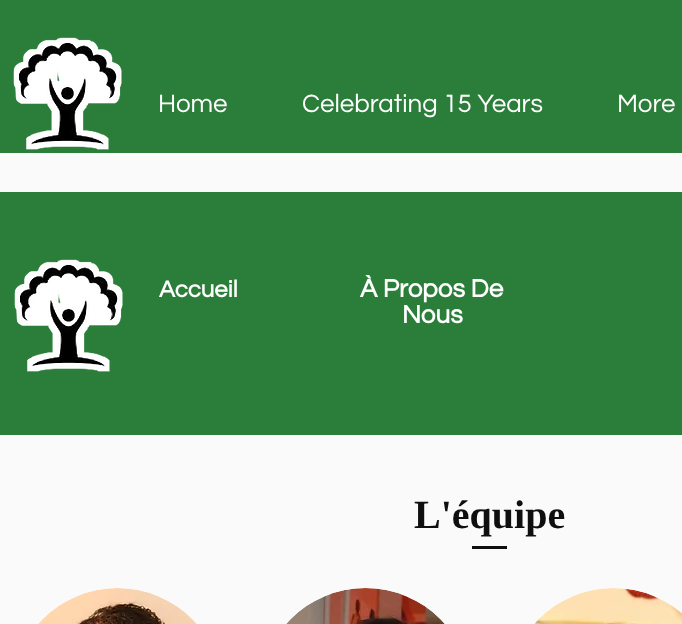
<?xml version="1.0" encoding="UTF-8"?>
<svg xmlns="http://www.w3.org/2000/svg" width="682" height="624">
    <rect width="100%" height="100%" fill="#2A7E39"/>
    <image x="13" y="37" width="109" height="113" href="img_01.png"/>
    <text x="158" y="112" font-family="Questrial" font-size="26" fill="#FFFFFF">Home</text>
    <text x="302" y="112" font-family="Questrial" font-size="26" fill="#FFFFFF">Celebrating 15 Years</text>
    <text x="617" y="112" font-family="Questrial" font-size="26" fill="#FFFFFF">More</text>
    <rect x="0" y="153" width="682" height="471" fill="#FAFAFA"/>
    <rect x="0" y="192" width="682" height="243" fill="#2A7E39"/>
    <image x="14" y="259" width="109" height="113" href="img_01.png"/>
    <text x="159" y="297" font-family="Questrial" font-size="24" font-weight="700" fill="#FFFFFF">Accueil</text>
    <text x="360" y="297" font-family="Questrial" font-size="26" font-weight="700" fill="#FFFFFF">À Propos De</text>
    <text x="402" y="323" font-family="Questrial" font-size="26" font-weight="700" fill="#FFFFFF">Nous</text>
    <text x="414" y="528" font-family="Liberation Serif" font-size="40" font-weight="700" fill="#0F0F0F">L'équipe</text>
    <rect x="472" y="546" width="35" height="3" fill="#0F0F0F"/>
    <ellipse cx="117.5" cy="695.5" rx="106.5" ry="107.5" fill="#FFFFFF"/>
    <image x="38" y="588" width="159" height="36" href="img_02.png"/>
    <ellipse cx="365.5" cy="695.5" rx="106.5" ry="107.5" fill="#FFFFFF"/>
    <image x="286" y="588" width="159" height="36" href="img_03.png"/>
    <ellipse cx="613.5" cy="695.5" rx="106.5" ry="107.5" fill="#FFFFFF"/>
    <image x="534" y="588" width="148" height="36" href="img_04.png"/>
</svg>
